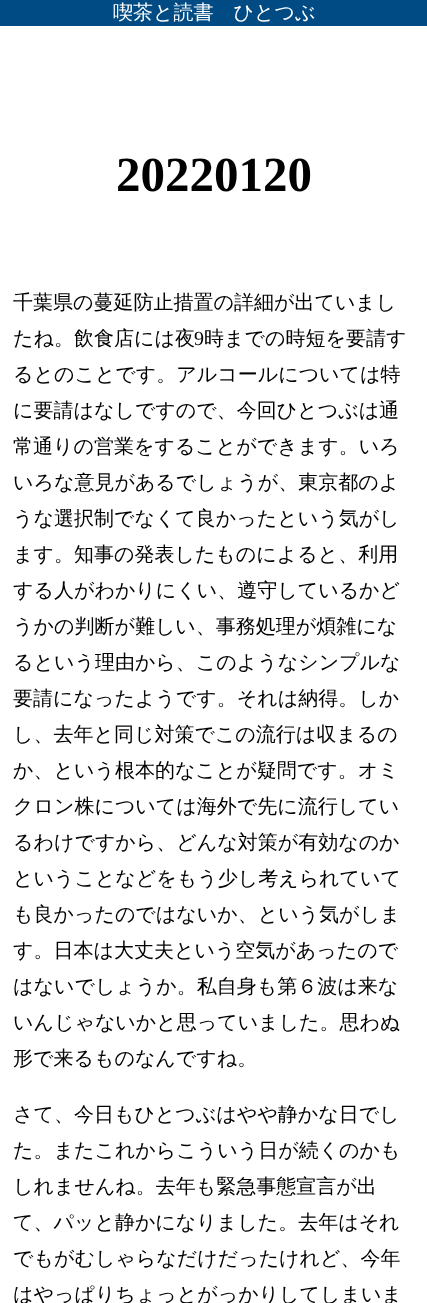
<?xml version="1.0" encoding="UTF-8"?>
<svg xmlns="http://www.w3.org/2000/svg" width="427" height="1303">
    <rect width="100%" height="100%" fill="#FFFFFF"/>
    <rect x="0" y="0" width="427" height="26" fill="#004B84"/>
    <text x="113" y="19" font-family="WenQuanYi Zen Hei" font-size="20" font-weight="500" fill="#FFFFFF">喫茶と読書　ひとつぶ</text>
    <text x="116" y="191" font-family="Liberation Serif" font-size="49" font-weight="700" fill="#000000">20220120</text>
    <text font-family="WenQuanYi Zen Hei" font-size="20" font-weight="500" fill="#000000">
        <tspan x="13" y="309">千葉県の蔓延防止措置の詳細が出ていまし</tspan>
        <tspan x="13" y="345">たね。飲食店には夜</tspan>
    </text>
    <text x="194" y="345" font-family="Liberation Serif" font-size="20" fill="#000000">9</text>
    <text x="204" y="345" font-family="WenQuanYi Zen Hei" font-size="20" font-weight="500" fill="#000000">時までの時短を要請す</text>
    <text font-family="WenQuanYi Zen Hei" font-size="20" font-weight="500" fill="#000000">
        <tspan x="13" y="381">るとのことです。アルコールについては特</tspan>
        <tspan x="13" y="417">に要請はなしですので、今回ひとつぶは通</tspan>
        <tspan x="13" y="453">常通りの営業をすることができます。いろ</tspan>
        <tspan x="13" y="489">いろな意見があるでしょうが、東京都のよ</tspan>
        <tspan x="13" y="525">うな選択制でなくて良かったという気がし</tspan>
        <tspan x="13" y="561">ます。知事の発表したものによると、利用</tspan>
        <tspan x="13" y="597">する人がわかりにくい、遵守しているかど</tspan>
        <tspan x="13" y="633">うかの判断が難しい、事務処理が煩雑にな</tspan>
        <tspan x="13" y="669">るという理由から、このようなシンプルな</tspan>
        <tspan x="13" y="705">要請になったようです。それは納得。しか</tspan>
        <tspan x="13" y="741">し、去年と同じ対策でこの流行は収まるの</tspan>
        <tspan x="13" y="777">か、という根本的なことが疑問です。オミ</tspan>
        <tspan x="13" y="813">クロン株については海外で先に流行してい</tspan>
        <tspan x="13" y="849">るわけですから、どんな対策が有効なのか</tspan>
        <tspan x="13" y="885">ということなどをもう少し考えられていて</tspan>
        <tspan x="13" y="921">も良かったのではないか、という気がしま</tspan>
        <tspan x="13" y="957">す。日本は大丈夫という空気があったので</tspan>
        <tspan x="13" y="993">はないでしょうか。私自身も第６波は来な</tspan>
        <tspan x="13" y="1029">いんじゃないかと思っていました。思わぬ</tspan>
        <tspan x="13" y="1065">形で来るものなんですね。</tspan>
    </text>
    <text font-family="WenQuanYi Zen Hei" font-size="20" font-weight="500" fill="#000000">
        <tspan x="13" y="1121">さて、今日もひとつぶはやや静かな日でし</tspan>
        <tspan x="13" y="1157">た。またこれからこういう日が続くのかも</tspan>
        <tspan x="13" y="1193">しれませんね。去年も緊急事態宣言が出</tspan>
        <tspan x="13" y="1229">て、パッと静かになりました。去年はそれ</tspan>
        <tspan x="13" y="1265">でもがむしゃらなだけだったけれど、今年</tspan>
        <tspan x="13" y="1301">はやっぱりちょっとがっかりしてしまいま</tspan>
    </text>
</svg>
